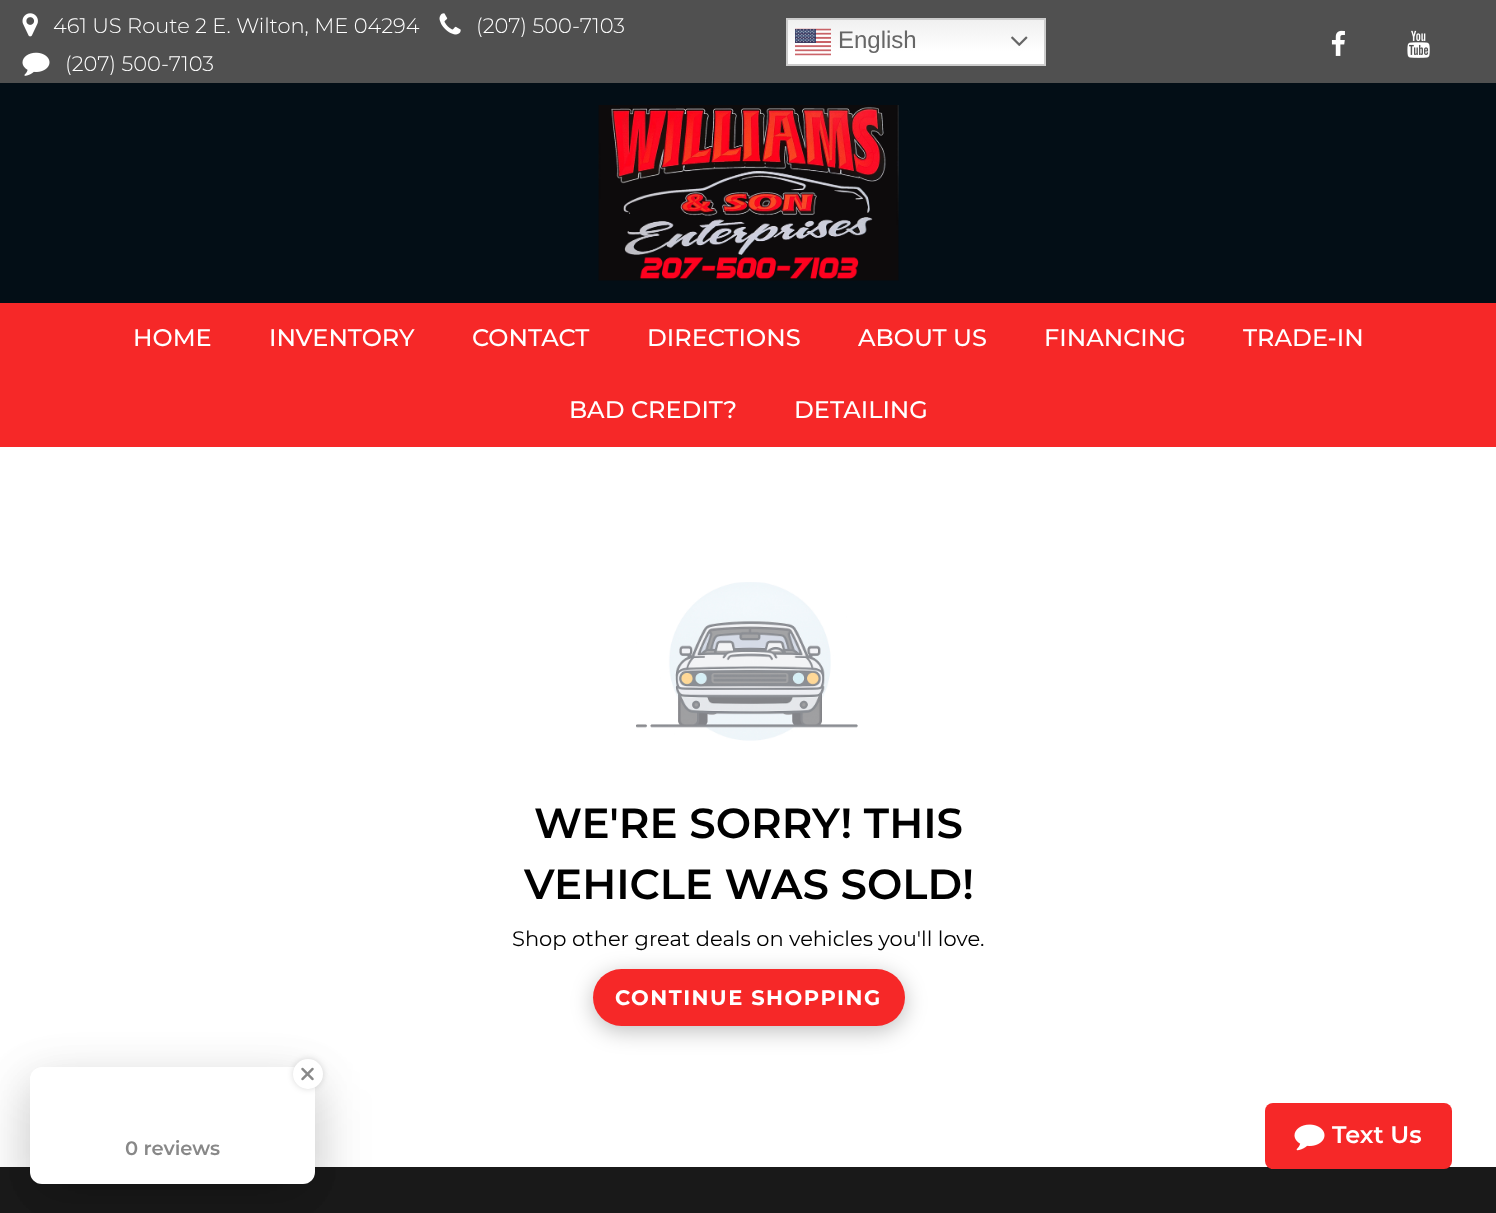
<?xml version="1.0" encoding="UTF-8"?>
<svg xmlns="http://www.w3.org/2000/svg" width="1496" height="1213">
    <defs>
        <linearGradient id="g1" gradientUnits="userSpaceOnUse" x1="916" y1="18" x2="916" y2="66"><stop offset="0" stop-color="#EFEFEF"/><stop offset="0.7" stop-color="#FFFFFF"/></linearGradient>
        <filter id="blur1" x="-50%" y="-200%" width="200%" height="500%"><feGaussianBlur stdDeviation="11"/></filter>
        <filter id="blur2" x="-50%" y="-200%" width="200%" height="500%"><feGaussianBlur stdDeviation="22.5"/></filter>
        <filter id="blur3" x="-50%" y="-200%" width="200%" height="500%"><feGaussianBlur stdDeviation="30"/></filter>
        <filter id="blur4" x="-50%" y="-200%" width="200%" height="500%"><feGaussianBlur stdDeviation="3"/></filter>
    </defs>
    <rect width="100%" height="100%" fill="#505050"/>
    <image x="22" y="13" width="16" height="24" href="img_01.png"/>
    <text x="53" y="33" font-family="Montserrat" font-size="21" font-weight="300" fill="#FFFFFF">461 US Route 2 E. Wilton, ME 04294</text>
    <image x="439" y="13" width="22" height="22" href="img_02.png"/>
    <text x="476" y="33" font-family="Montserrat" font-size="21" font-weight="300" fill="#FFFFFF">(207) 500-7103</text>
    <image x="22" y="52" width="28" height="24" href="img_03.png"/>
    <text x="65" y="71" font-family="Montserrat" font-size="21" font-weight="300" fill="#FFFFFF">(207) 500-7103</text>
    <rect x="788" y="20" width="256" height="44" fill="url(#g1)"/>
    <rect x="787" y="19" width="258" height="46" fill="none" stroke="#CCCCCC" stroke-width="2"/>
    <image x="795" y="28" width="36" height="28" href="img_04.png"/>
    <text x="838" y="48" font-family="Liberation Sans" font-size="24" fill="#666666">English</text>
    <image x="1011" y="36" width="17" height="10" href="img_05.png"/>
    <image x="1331" y="30" width="14" height="26" href="img_06.png"/>
    <image x="1407" y="30" width="23" height="28" href="img_07.png"/>
    <rect x="0" y="83" width="1496" height="220" fill="#030E16"/>
    <image x="598" y="105" width="301" height="176" href="img_08.png"/>
    <rect x="0" y="303" width="1496" height="144" fill="#F62828"/>
    <text x="133" y="346" font-family="Montserrat" font-size="24" font-weight="500" fill="#FFFFFF">HOME</text>
    <text x="269" y="346" font-family="Montserrat" font-size="24" font-weight="500" fill="#FFFFFF">INVENTORY</text>
    <text x="472" y="346" font-family="Montserrat" font-size="24" font-weight="500" fill="#FFFFFF">CONTACT</text>
    <text x="647" y="346" font-family="Montserrat" font-size="24" font-weight="500" fill="#FFFFFF">DIRECTIONS</text>
    <text x="858" y="346" font-family="Montserrat" font-size="24" font-weight="500" fill="#FFFFFF">ABOUT US</text>
    <text x="1044" y="346" font-family="Montserrat" font-size="24" font-weight="500" fill="#FFFFFF">FINANCING</text>
    <text x="1243" y="346" font-family="Montserrat" font-size="24" font-weight="500" fill="#FFFFFF">TRADE-IN</text>
    <text x="569" y="418" font-family="Montserrat" font-size="24" font-weight="500" fill="#FFFFFF">BAD CREDIT?</text>
    <text x="794" y="418" font-family="Montserrat" font-size="24" font-weight="500" fill="#FFFFFF">DETAILING</text>
    <rect x="0" y="447" width="1496" height="720" fill="#FFFFFF"/>
    <image x="636" y="582" width="222" height="159" href="img_09.png"/>
    <text x="534" y="838" font-family="Montserrat" font-size="42" font-weight="600" fill="#000000">WE'RE SORRY! THIS</text>
    <text x="524" y="899" font-family="Montserrat" font-size="42" font-weight="600" fill="#000000">VEHICLE WAS SOLD!</text>
    <text x="512" y="946" font-family="Montserrat" font-size="21" fill="#000000">Shop other great deals on vehicles you'll love.</text>
    <rect x="593" y="974" width="312" height="57" rx="28.5" fill="#000000" fill-opacity="0.25" filter="url(#blur1)"/>
    <rect x="593" y="969" width="312" height="57" rx="28.5" fill="#F62828"/>
    <text x="615" y="1005" font-family="Montserrat" font-size="21" font-weight="700" letter-spacing="1.5" fill="#FFFFFF">CONTINUE SHOPPING</text>
    <rect x="0" y="1167" width="1496" height="46" fill="#191919"/>
    <rect x="1265" y="1103" width="187" height="66" rx="8" fill="#F62828"/>
    <image x="1294" y="1124" width="31" height="27" href="img_10.png"/>
    <text x="1332" y="1143" font-family="Montserrat" font-size="24" font-weight="600" fill="#FFFFFF">Text Us</text>
    <rect x="30" y="1082" width="285" height="117" rx="12" fill="#000000" fill-opacity="0.15" filter="url(#blur2)"/>
    <rect x="30" y="1089" width="285" height="117" rx="12" fill="#000000" fill-opacity="0.1" filter="url(#blur3)"/>
    <rect x="30" y="1067" width="285" height="117" rx="12" fill="#FFFFFF"/>
    <rect x="293" y="1059" width="30" height="30" rx="15" fill="#000000" fill-opacity="0.15" filter="url(#blur4)"/>
    <circle cx="308" cy="1074" r="15" fill="#FFFFFF"/>
    <image x="301" y="1067" width="13" height="14" href="img_11.png"/>
    <text x="125" y="1155" font-family="Montserrat" font-size="19.5" font-weight="600" fill="#888888">0 reviews</text>
</svg>
